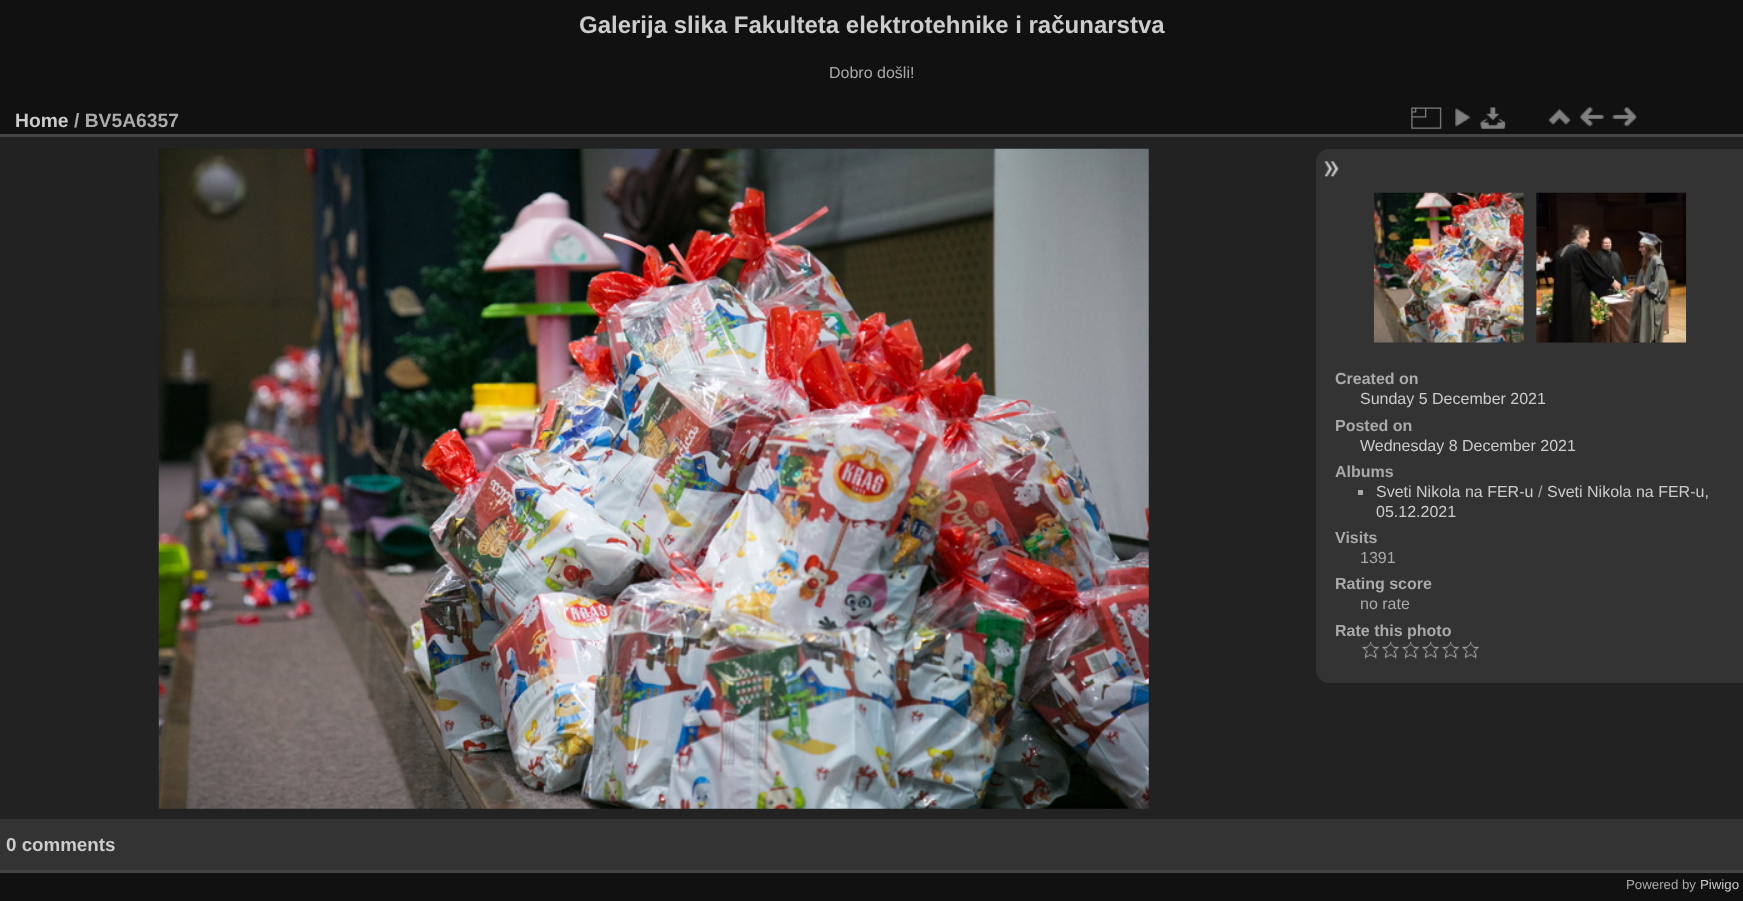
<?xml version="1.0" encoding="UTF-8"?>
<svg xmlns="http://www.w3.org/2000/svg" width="1743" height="901">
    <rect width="100%" height="100%" fill="#111111"/>
    <text x="579" y="33" font-family="Liberation Sans" font-size="24" font-weight="700" fill="#CCCCCC">Galerija slika Fakulteta elektrotehnike i računarstva</text>
    <text x="829" y="78" font-family="Liberation Sans" font-size="16" fill="#AAAAAA">Dobro došli!</text>
    <rect x="0" y="137" width="1743" height="682" fill="#222222"/>
    <rect x="0" y="870" width="1743" height="3" fill="#444444"/>
    <rect x="0" y="134" width="1743" height="3" fill="#444444"/>
    <text x="15" y="127" font-family="Liberation Sans" font-size="19.25" font-weight="700" fill="#CCCCCC">Home</text>
    <text x="74" y="127" font-family="Liberation Sans" font-size="19.25" font-weight="700" fill="#AAAAAA">/ BV5A6357</text>
    <image x="1411" y="107" width="31" height="22" href="img_01.png"/>
    <image x="1455" y="108" width="16" height="19" href="img_02.png"/>
    <image x="1480" y="107" width="26" height="22" href="img_03.png"/>
    <image x="1548" y="108" width="23" height="17" href="img_04.png"/>
    <image x="1580" y="107" width="24" height="20" href="img_05.png"/>
    <image x="1612" y="107" width="25" height="20" href="img_06.png"/>
    <image x="158" y="148" width="991" height="661" href="img_07.png"/>
    <path d="M 1329 149 H 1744 V 683 H 1329 C 1322 683 1316 677 1316 670 V 162 C 1316 155 1322 149 1329 149 Z" fill="#333333"/>
    <image x="1324" y="161" width="15" height="16" href="img_08.png"/>
    <image x="1373" y="192" width="151" height="151" href="img_09.png"/>
    <image x="1536" y="192" width="151" height="151" href="img_10.png"/>
    <text x="1335" y="384" font-family="Liberation Sans" font-size="16" font-weight="700" fill="#AAAAAA">Created on</text>
    <text x="1360" y="404" font-family="Liberation Sans" font-size="16" fill="#CCCCCC">Sunday 5 December 2021</text>
    <text x="1335" y="431" font-family="Liberation Sans" font-size="16" font-weight="700" fill="#AAAAAA">Posted on</text>
    <text x="1360" y="451" font-family="Liberation Sans" font-size="16" fill="#CCCCCC">Wednesday 8 December 2021</text>
    <text x="1335" y="477" font-family="Liberation Sans" font-size="16" font-weight="700" fill="#AAAAAA">Albums</text>
    <rect x="1358" y="490" width="5" height="5" fill="#AAAAAA"/>
    <text x="1376" y="497" font-family="Liberation Sans" font-size="16" fill="#CCCCCC">Sveti Nikola na FER-u</text>
    <text x="1538" y="497" font-family="Liberation Sans" font-size="16" fill="#AAAAAA">/</text>
    <text x="1547" y="497" font-family="Liberation Sans" font-size="16" fill="#CCCCCC">Sveti Nikola na FER-u,</text>
    <text x="1376" y="517" font-family="Liberation Sans" font-size="16" fill="#CCCCCC">05.12.2021</text>
    <text x="1335" y="543" font-family="Liberation Sans" font-size="16" font-weight="700" fill="#AAAAAA">Visits</text>
    <text x="1360" y="563" font-family="Liberation Sans" font-size="16" fill="#AAAAAA">1391</text>
    <text x="1335" y="589" font-family="Liberation Sans" font-size="16" font-weight="700" fill="#AAAAAA">Rating score</text>
    <text x="1360" y="609" font-family="Liberation Sans" font-size="16" fill="#AAAAAA">no rate</text>
    <text x="1335" y="636" font-family="Liberation Sans" font-size="16" font-weight="700" fill="#AAAAAA">Rate this photo</text>
    <image x="1362" y="641" width="17" height="18" href="img_11.png"/>
    <image x="1382" y="641" width="17" height="18" href="img_11.png"/>
    <image x="1402" y="641" width="17" height="18" href="img_11.png"/>
    <image x="1422" y="641" width="17" height="18" href="img_11.png"/>
    <image x="1442" y="641" width="17" height="18" href="img_11.png"/>
    <image x="1462" y="641" width="17" height="18" href="img_11.png"/>
    <rect x="0" y="819" width="1743" height="51" fill="#333333"/>
    <text x="6" y="851" font-family="Liberation Sans" font-size="18.75" font-weight="700" fill="#CCCCCC">0 comments</text>
    <text x="1626" y="889" font-family="Liberation Sans" font-size="13.25" fill="#AAAAAA">Powered by</text>
    <text x="1700" y="889" font-family="Liberation Sans" font-size="13.25" fill="#CCCCCC">Piwigo</text>
</svg>
